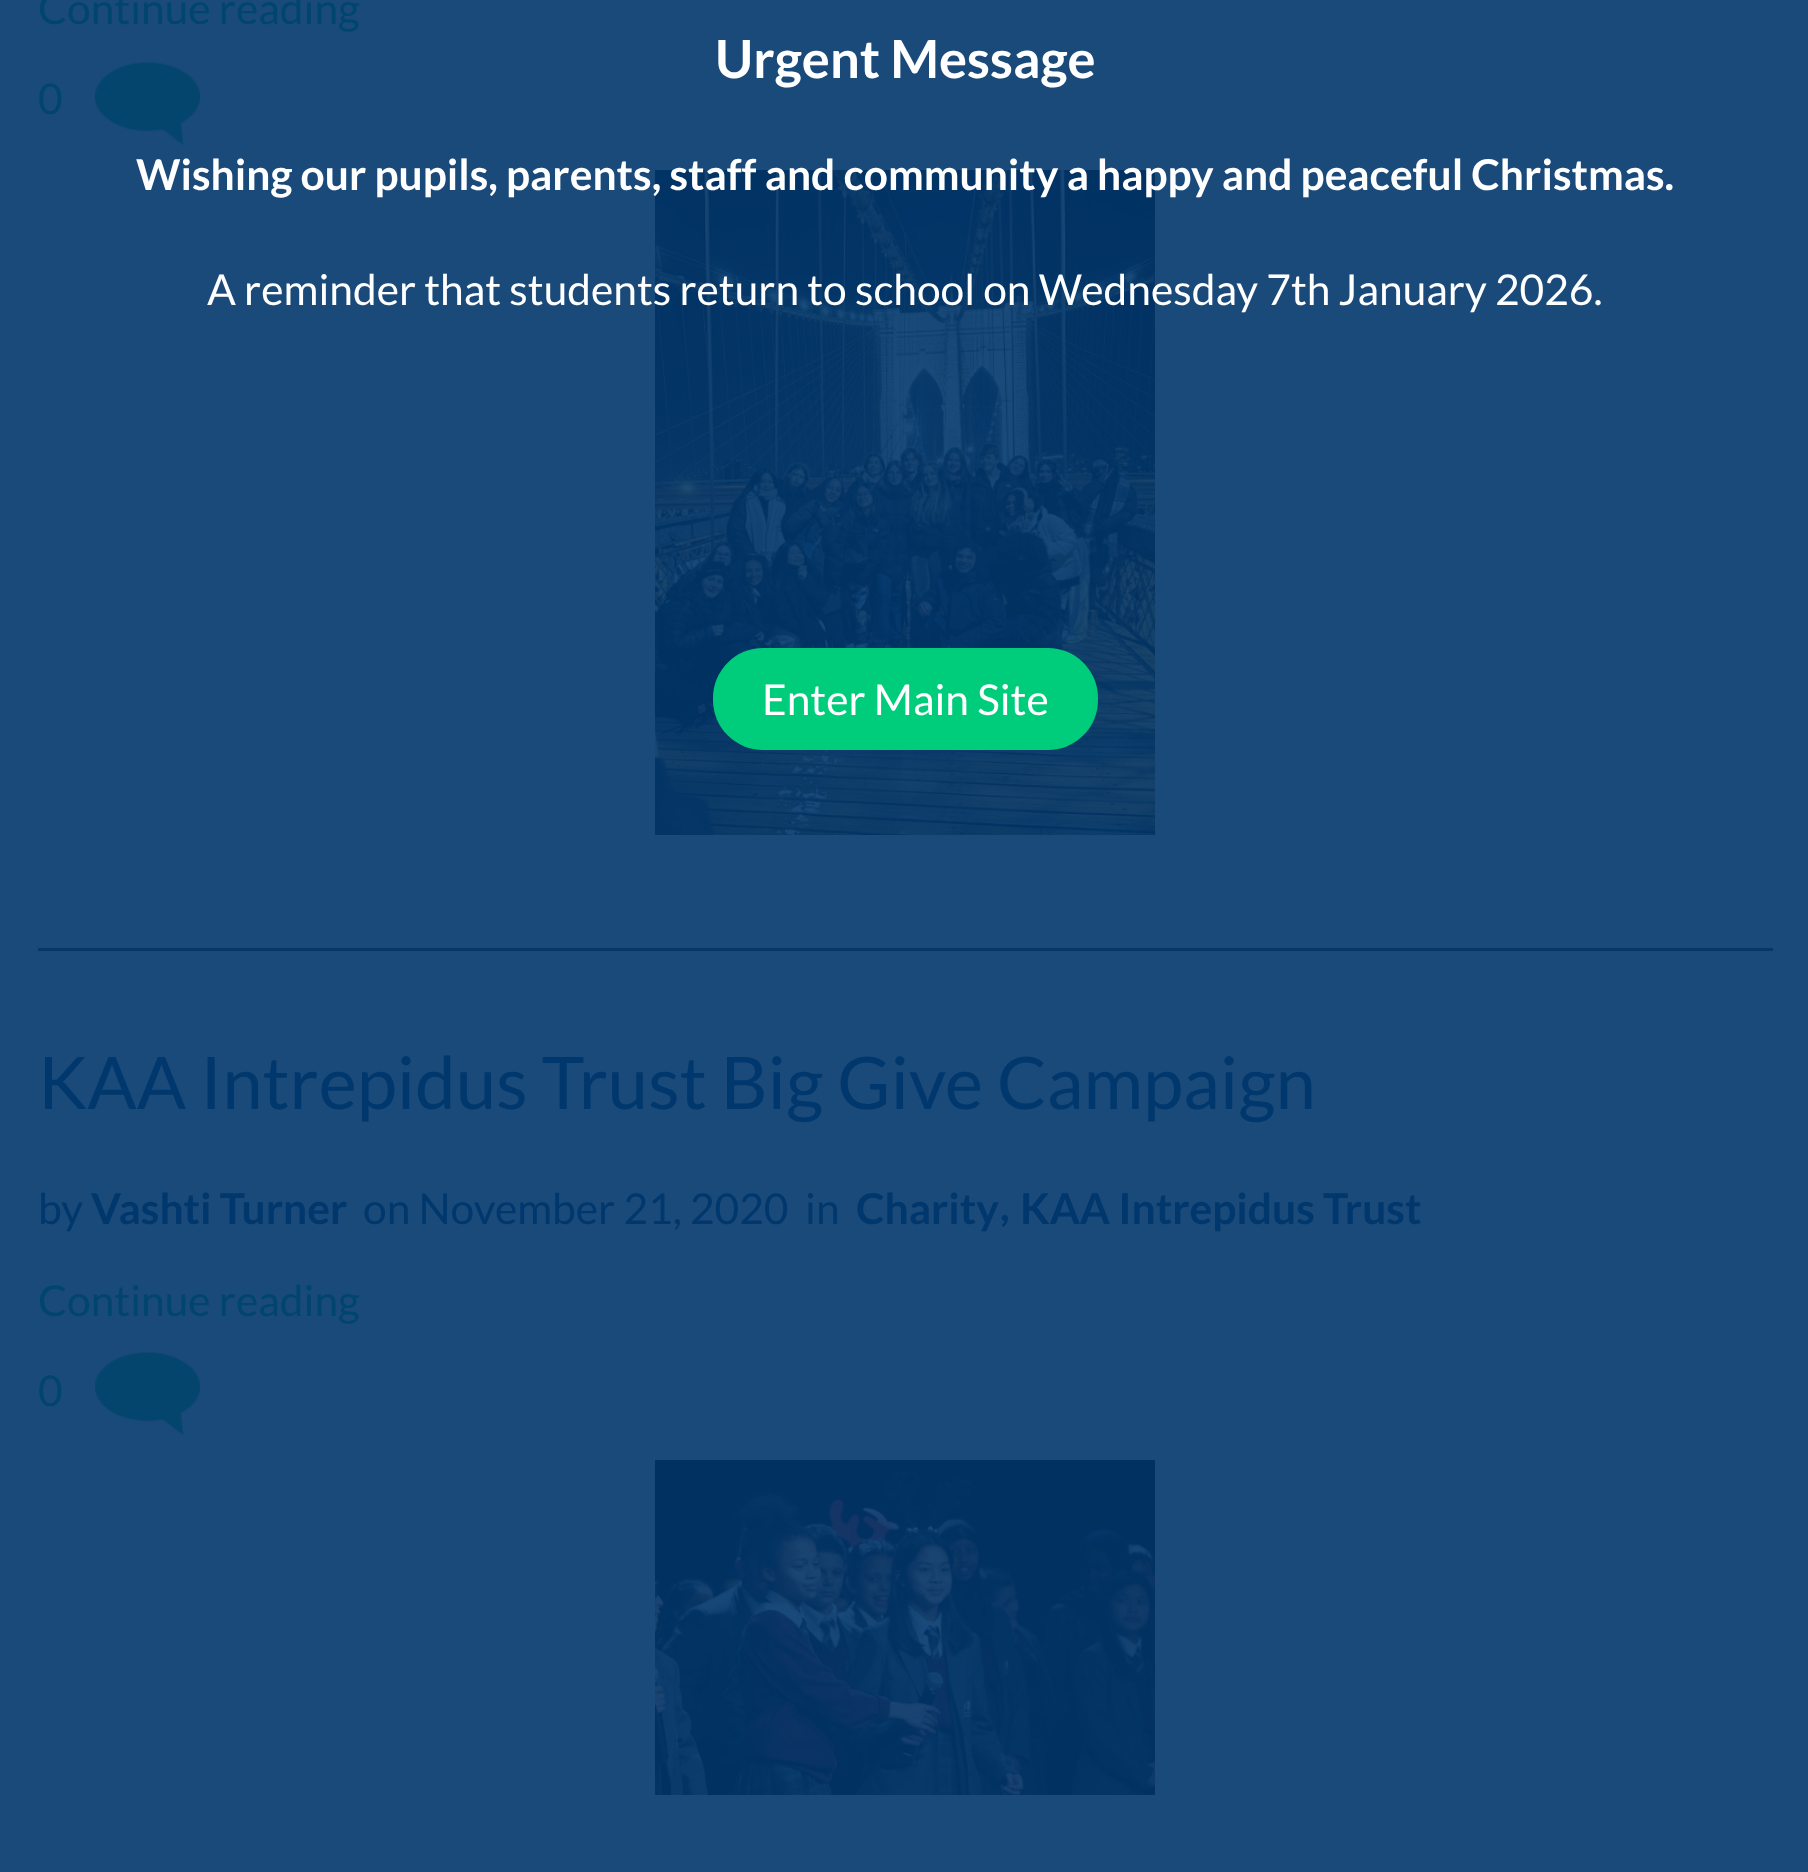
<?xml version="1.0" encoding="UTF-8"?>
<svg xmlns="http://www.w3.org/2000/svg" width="1808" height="1872">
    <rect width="100%" height="100%" fill="#1A4A7A"/>
    <rect x="38" y="948" width="1735" height="3" fill="#073767"/>
    <text x="38" y="24" font-family="Lato" font-size="42.5" fill="#00456D">Continue reading</text>
    <text x="38" y="114" font-family="Lato" font-size="42.5" fill="#00456D">0</text>
    <image x="95" y="62" width="105" height="83" href="img_01.png"/>
    <image x="655" y="170" width="500" height="665" href="img_02.png"/>
    <text x="38" y="1109" font-family="Lato" font-size="72.5" fill="#00376D">KAA Intrepidus Trust Big Give Campaign</text>
    <text x="38" y="1224" font-family="Lato" font-size="42.5" fill="#00376D">by</text>
    <text x="91" y="1224" font-family="Lato" font-size="42.5" font-weight="700" fill="#00376D">Vashti Turner</text>
    <text x="363" y="1224" font-family="Lato" font-size="42.5" fill="#00376D">on November 21, 2020</text>
    <text x="805" y="1224" font-family="Lato" font-size="42.5" fill="#00376D">in</text>
    <text x="856" y="1224" font-family="Lato" font-size="42.5" font-weight="700" fill="#00376D">Charity</text>
    <text x="1000" y="1221" font-family="Lato" font-size="42.5" font-weight="700" fill="#00376D">,</text>
    <text x="1020" y="1224" font-family="Lato" font-size="42.5" font-weight="700" fill="#00376D">KAA Intrepidus Trust</text>
    <text x="38" y="1316" font-family="Lato" font-size="42.5" fill="#00456D">Continue reading</text>
    <text x="38" y="1406" font-family="Lato" font-size="42.5" fill="#00456D">0</text>
    <image x="95" y="1352" width="105" height="83" href="img_01.png"/>
    <image x="655" y="1460" width="500" height="335" href="img_03.png"/>
    <text x="715" y="78" font-family="Lato" font-size="52.5" font-weight="700" fill="#FFFFFF">Urgent Message</text>
    <text x="136" y="190" font-family="Lato" font-size="42.5" font-weight="700" fill="#FFFFFF">Wishing our pupils, parents, staff and community a happy and peaceful Christmas.</text>
    <text x="207" y="305" font-family="Lato" font-size="42.5" fill="#FFFFFF">A reminder that students return to school on Wednesday 7th January 2026.</text>
    <rect x="713" y="648" width="385" height="102" rx="50" fill="#00CD7C"/>
    <text x="762" y="715" font-family="Lato" font-size="42.5" fill="#FFFFFF">Enter Main Site</text>
</svg>
